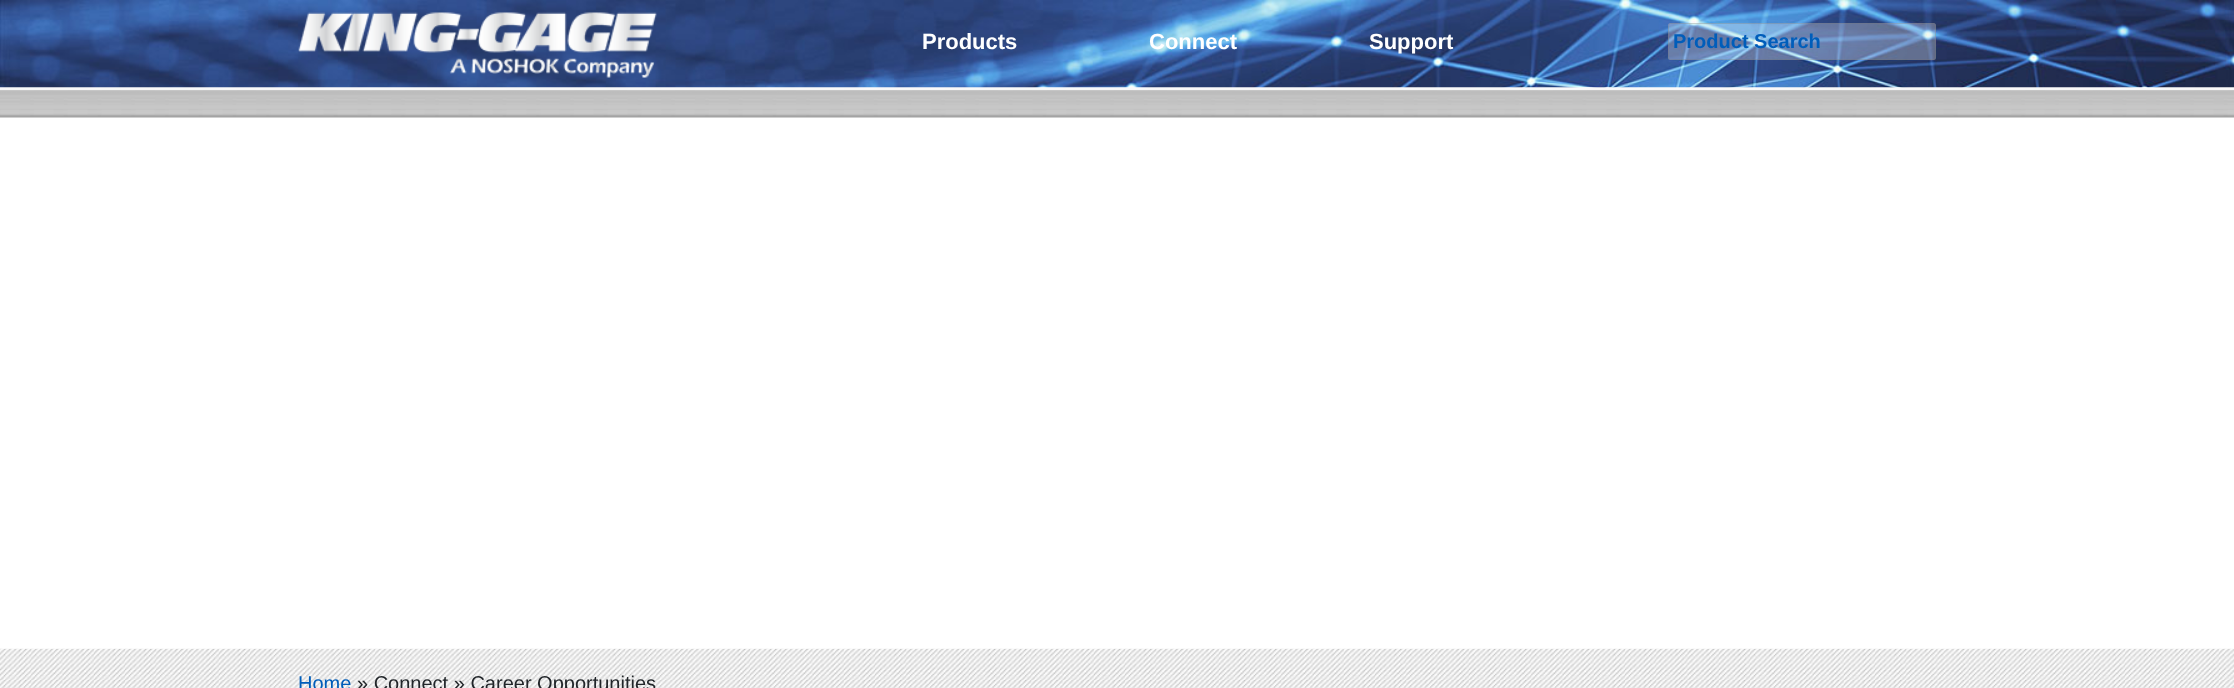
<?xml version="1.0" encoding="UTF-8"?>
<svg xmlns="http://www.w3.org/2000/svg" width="2234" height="688">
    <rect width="100%" height="100%" fill="#FFFFFF"/>
    <image x="0" y="0" width="2234" height="88" href="img_01.png"/>
    <image x="298" y="12" width="359" height="66" href="img_02.png"/>
    <text x="922" y="49" font-family="Liberation Sans" font-size="22" font-weight="700" fill="#FFFFFF">Products</text>
    <text x="1149" y="49" font-family="Liberation Sans" font-size="22" font-weight="700" fill="#FFFFFF">Connect</text>
    <text x="1369" y="49" font-family="Liberation Sans" font-size="22" font-weight="700" fill="#FFFFFF">Support</text>
    <rect x="1668" y="23" width="268" height="37" rx="2.5" fill="#EFEFEF" fill-opacity="0.3"/>
    <rect x="1668.5" y="23.5" width="267" height="36" rx="2" fill="none" stroke="#767676" stroke-opacity="0.3"/>
    <text x="1673" y="48" font-family="Liberation Sans" font-size="20" font-weight="700" fill="#005DBA">Product Search</text>
    <image x="0" y="87" width="2234" height="31" href="img_03.png"/>
    <image x="0" y="648" width="2234" height="40" href="img_04.png"/>
    <text x="298" y="690" font-family="Liberation Sans" font-size="20" fill="#005DBA">Home</text>
    <text x="357" y="690" font-family="Liberation Sans" font-size="20" fill="#212529">» Connect » Career Opportunities</text>
</svg>
